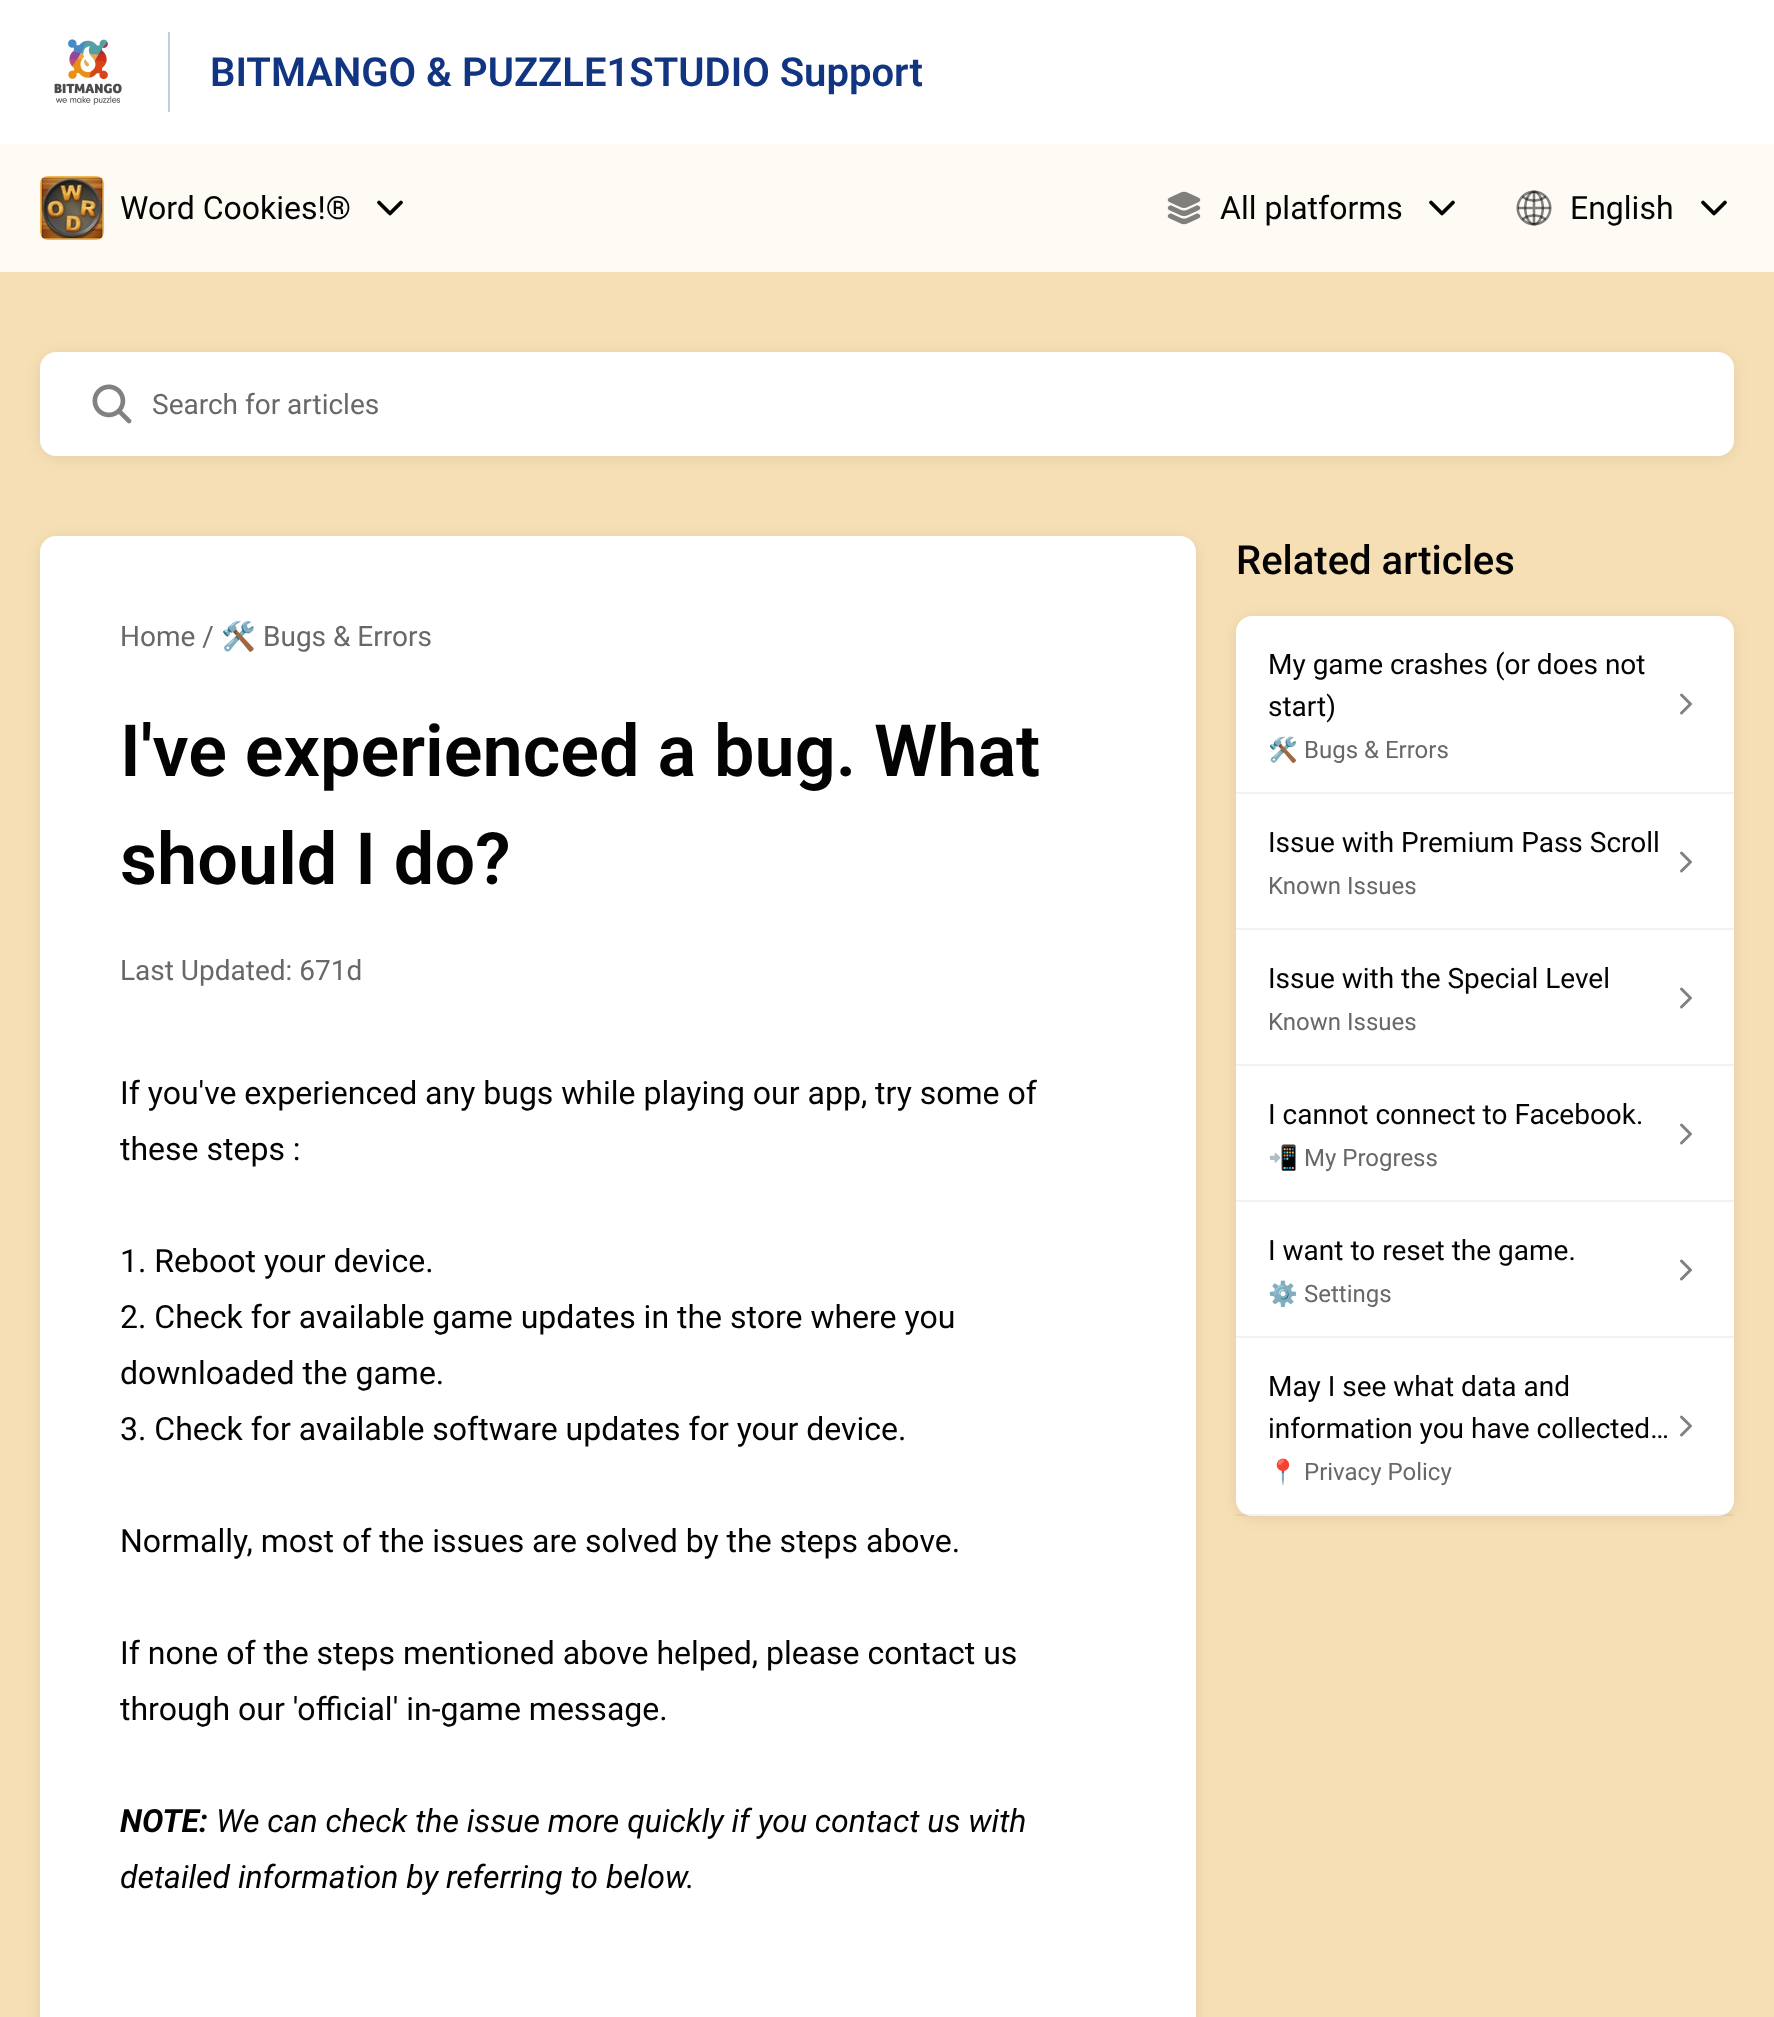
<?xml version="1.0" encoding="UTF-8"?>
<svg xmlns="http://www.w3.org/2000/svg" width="1774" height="2017">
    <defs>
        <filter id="blur1" x="-50%" y="-200%" width="200%" height="500%"><feGaussianBlur stdDeviation="8"/></filter>
    </defs>
    <rect width="100%" height="100%" fill="#FEFAF4"/>
    <rect x="0" y="0" width="1774" height="144" fill="#FFFFFF"/>
    <rect x="168" y="32" width="2" height="80" fill="#C4CDE0"/>
    <image x="54" y="39" width="68" height="66" href="img_01.png"/>
    <text x="210" y="86" font-family="Roboto" font-size="40" font-weight="600" fill="#123581">BITMANGO &amp; PUZZLE1STUDIO Support</text>
    <image x="40" y="176" width="64" height="64" href="img_02.png"/>
    <text x="120" y="219" font-family="Roboto" font-size="32" fill="#030303">Word Cookies!®</text>
    <path d="M 379 202.5 L 390 213.5 L 401 202.5" fill="none" stroke="#030303" stroke-width="3.8" stroke-linecap="round" stroke-linejoin="round"/>
    <image x="1167" y="191" width="34" height="34" href="img_03.png"/>
    <text x="1220" y="219" font-family="Roboto" font-size="32" fill="#030303">All platforms</text>
    <path d="M 1431 202.5 L 1442 213.5 L 1453 202.5" fill="none" stroke="#030303" stroke-width="3.8" stroke-linecap="round" stroke-linejoin="round"/>
    <image x="1516" y="190" width="36" height="36" href="img_04.png"/>
    <text x="1570" y="219" font-family="Roboto" font-size="32" fill="#030303">English</text>
    <path d="M 1703 202.5 L 1714 213.5 L 1725 202.5" fill="none" stroke="#030303" stroke-width="3.8" stroke-linecap="round" stroke-linejoin="round"/>
    <rect x="0" y="272" width="1774" height="1745" fill="#F7DFB5"/>
    <rect x="40" y="354" width="1694" height="104" rx="16" fill="#000000" fill-opacity="0.08" filter="url(#blur1)"/>
    <rect x="40" y="352" width="1694" height="104" rx="16" fill="#FFFFFF"/>
    <image x="92" y="384" width="40" height="40" href="img_05.png"/>
    <text x="152" y="414" font-family="Roboto" font-size="28" fill="#686868">Search for articles</text>
    <rect x="40" y="538" width="1156" height="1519" rx="16" fill="#000000" fill-opacity="0.08" filter="url(#blur1)"/>
    <path d="M 56 536 H 1180 C 1189 536 1196 543 1196 552 V 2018 H 40 V 552 C 40 543 47 536 56 536 Z" fill="#FFFFFF"/>
    <text x="120" y="646" font-family="Roboto" font-size="28" fill="#686868">Home /</text>
    <text x="221" y="646" font-family="Noto Color Emoji" font-size="28" fill="#686868">🛠️</text>
    <text x="263" y="646" font-family="Roboto" font-size="28" fill="#686868">Bugs &amp; Errors</text>
    <text font-family="Roboto" font-size="72" font-weight="600" fill="#030303">
        <tspan x="120" y="776">I've experienced a bug. What</tspan>
        <tspan x="120" y="884">should I do?</tspan>
    </text>
    <text x="120" y="980" font-family="Roboto" font-size="28" fill="#686868">Last Updated: 671d</text>
    <text font-family="Roboto" font-size="32" fill="#030303">
        <tspan x="120" y="1104">If you've experienced any bugs while playing our app, try some of</tspan>
        <tspan x="120" y="1160">these steps :</tspan>
    </text>
    <text font-family="Roboto" font-size="32" fill="#030303">
        <tspan x="120" y="1272">1. Reboot your device.</tspan>
        <tspan x="120" y="1328">2. Check for available game updates in the store where you</tspan>
        <tspan x="120" y="1384">downloaded the game.</tspan>
        <tspan x="120" y="1440">3. Check for available software updates for your device.</tspan>
    </text>
    <text x="120" y="1552" font-family="Roboto" font-size="32" fill="#030303">Normally, most of the issues are solved by the steps above.</text>
    <text font-family="Roboto" font-size="32" fill="#030303">
        <tspan x="120" y="1664">If none of the steps mentioned above helped, please contact us</tspan>
        <tspan x="120" y="1720">through our 'official' in-game message.</tspan>
    </text>
    <text x="120" y="1832" font-family="Roboto" font-size="32" font-weight="700" font-style="italic" fill="#030303">NOTE:</text>
    <text x="216" y="1832" font-family="Roboto" font-size="32" font-style="italic" fill="#030303">We can check the issue more quickly if you contact us with</text>
    <text x="120" y="1888" font-family="Roboto" font-size="32" font-style="italic" fill="#030303">detailed information by referring to below.</text>
    <text x="1236" y="574" font-family="Roboto" font-size="40" font-weight="500" fill="#030303">Related articles</text>
    <rect x="1236" y="618" width="498" height="900" rx="16" fill="#000000" fill-opacity="0.08" filter="url(#blur1)"/>
    <rect x="1236" y="616" width="498" height="900" rx="16" fill="#FFFFFF"/>
    <rect x="1236" y="792" width="498" height="2" fill="#F2F2F2"/>
    <text font-family="Roboto" font-size="28" fill="#030303">
        <tspan x="1268" y="674">My game crashes (or does not</tspan>
        <tspan x="1268" y="716">start)</tspan>
    </text>
    <text x="1268" y="758" font-family="Noto Color Emoji" font-size="24" fill="#686868">🛠️</text>
    <text x="1304" y="758" font-family="Roboto" font-size="24" fill="#686868">Bugs &amp; Errors</text>
    <path d="M 1681.5 695 L 1690.5 704 L 1681.5 713" fill="none" stroke="#818181" stroke-width="3" stroke-linecap="round" stroke-linejoin="round"/>
    <rect x="1236" y="928" width="498" height="2" fill="#F2F2F2"/>
    <text x="1268" y="852" font-family="Roboto" font-size="28" fill="#030303">Issue with Premium Pass Scroll</text>
    <text x="1268" y="894" font-family="Roboto" font-size="24" fill="#686868">Known Issues</text>
    <path d="M 1681.5 853 L 1690.5 862 L 1681.5 871" fill="none" stroke="#818181" stroke-width="3" stroke-linecap="round" stroke-linejoin="round"/>
    <rect x="1236" y="1064" width="498" height="2" fill="#F2F2F2"/>
    <text x="1268" y="988" font-family="Roboto" font-size="28" fill="#030303">Issue with the Special Level</text>
    <text x="1268" y="1030" font-family="Roboto" font-size="24" fill="#686868">Known Issues</text>
    <path d="M 1681.5 989 L 1690.5 998 L 1681.5 1007" fill="none" stroke="#818181" stroke-width="3" stroke-linecap="round" stroke-linejoin="round"/>
    <rect x="1236" y="1200" width="498" height="2" fill="#F2F2F2"/>
    <text x="1268" y="1124" font-family="Roboto" font-size="28" fill="#030303">I cannot connect to Facebook.</text>
    <text x="1268" y="1166" font-family="Noto Color Emoji" font-size="24" fill="#686868">📲</text>
    <text x="1304" y="1166" font-family="Roboto" font-size="24" fill="#686868">My Progress</text>
    <path d="M 1681.5 1125 L 1690.5 1134 L 1681.5 1143" fill="none" stroke="#818181" stroke-width="3" stroke-linecap="round" stroke-linejoin="round"/>
    <rect x="1236" y="1336" width="498" height="2" fill="#F2F2F2"/>
    <text x="1268" y="1260" font-family="Roboto" font-size="28" fill="#030303">I want to reset the game.</text>
    <text x="1268" y="1302" font-family="Noto Color Emoji" font-size="24" fill="#686868">⚙️</text>
    <text x="1304" y="1302" font-family="Roboto" font-size="24" fill="#686868">Settings</text>
    <path d="M 1681.5 1261 L 1690.5 1270 L 1681.5 1279" fill="none" stroke="#818181" stroke-width="3" stroke-linecap="round" stroke-linejoin="round"/>
    <rect x="1236" y="1514" width="498" height="2" fill="#030303" fill-opacity="0.05"/>
    <text font-family="Roboto" font-size="28" fill="#030303">
        <tspan x="1268" y="1396">May I see what data and</tspan>
        <tspan x="1268" y="1438">information you have collected…</tspan>
    </text>
    <text x="1268" y="1480" font-family="Noto Color Emoji" font-size="24" fill="#686868">📍</text>
    <text x="1304" y="1480" font-family="Roboto" font-size="24" fill="#686868">Privacy Policy</text>
    <path d="M 1681.5 1417 L 1690.5 1426 L 1681.5 1435" fill="none" stroke="#818181" stroke-width="3" stroke-linecap="round" stroke-linejoin="round"/>
</svg>
